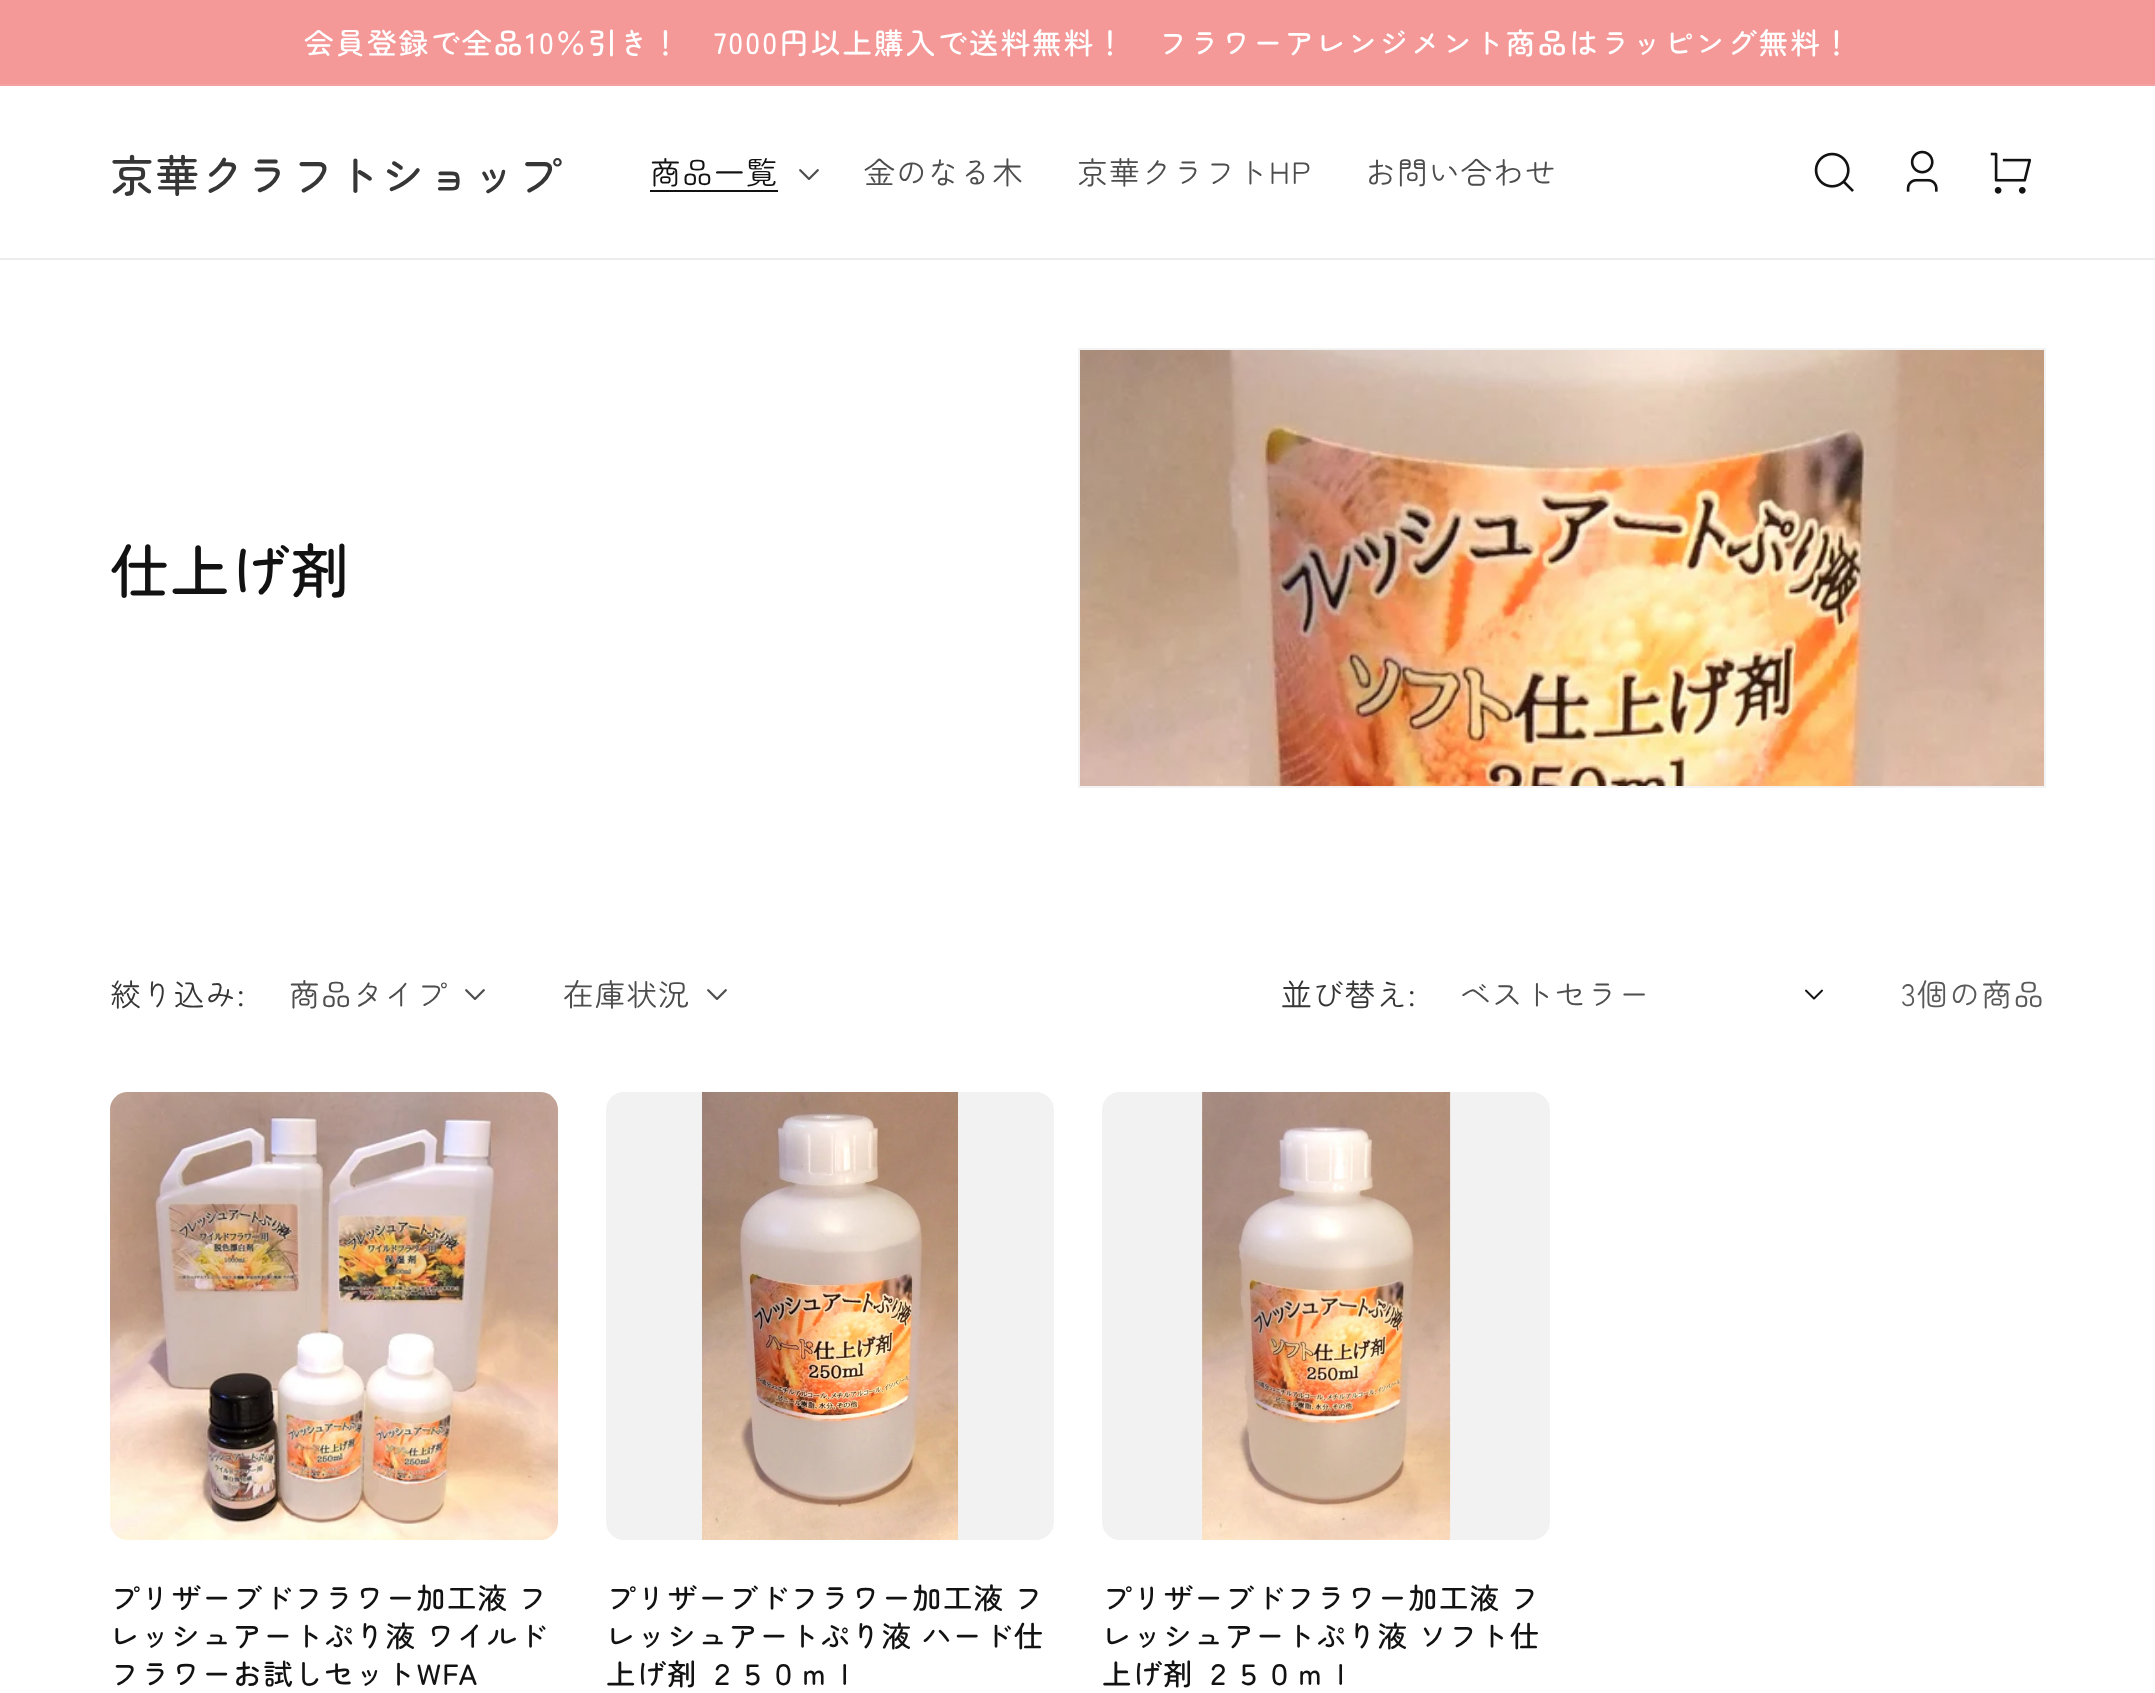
<?xml version="1.0" encoding="UTF-8"?>
<svg xmlns="http://www.w3.org/2000/svg" width="2155" height="1693">
    <rect width="100%" height="100%" fill="#FFFFFF"/>
    <rect x="0" y="0" width="2155" height="84" fill="#F49898"/>
    <rect x="0" y="84" width="2155" height="2" fill="#F5A0A0"/>
    <text x="304" y="54" font-family="Zen Maru Gothic" font-size="29.4" font-weight="500" letter-spacing="2.2" fill="#FFFFFF">会員登録で全品10％引き！　7000円以上購入で送料無料！　フラワーアレンジメント商品はラッピング無料！</text>
    <rect x="0" y="258" width="2155" height="2" fill="#ECECEC"/>
    <text x="110" y="192" font-family="Zen Maru Gothic" font-size="44" font-weight="500" letter-spacing="1.25" fill="#363636">京華クラフトショップ</text>
    <text x="650" y="184" font-family="Zen Maru Gothic" font-size="30.75" letter-spacing="1.25" fill="#121212">商品一覧</text>
    <rect x="650" y="190" width="128" height="2" fill="#121212"/>
    <image x="799" y="169" width="20" height="11" href="img_01.png"/>
    <text x="864" y="184" font-family="Zen Maru Gothic" font-size="30.75" letter-spacing="1.25" fill="#4D4D4D">金のなる木</text>
    <text x="1077" y="184" font-family="Zen Maru Gothic" font-size="30.75" letter-spacing="1.25" fill="#4D4D4D">京華クラフトHP</text>
    <text x="1365" y="184" font-family="Zen Maru Gothic" font-size="30.75" letter-spacing="1.25" fill="#4D4D4D">お問い合わせ</text>
    <image x="1814" y="152" width="40" height="40" href="img_02.png"/>
    <image x="1906" y="150" width="33" height="42" href="img_03.png"/>
    <image x="1990" y="152" width="42" height="43" href="img_04.png"/>
    <text x="110" y="593" font-family="Zen Maru Gothic" font-size="59" font-weight="500" letter-spacing="1.25" fill="#121212">仕上げ剤</text>
    <rect x="1079" y="349" width="966" height="438" fill="none" stroke="#F3F3F3" stroke-width="2"/>
    <image x="1080" y="350" width="964" height="436" href="img_05.png"/>
    <text x="110" y="1006" font-family="Zen Maru Gothic" font-size="30.75" letter-spacing="1" fill="#363636">絞り込み:</text>
    <text x="289" y="1006" font-family="Zen Maru Gothic" font-size="30.75" letter-spacing="1" fill="#4D4D4D">商品タイプ</text>
    <image x="465" y="989" width="20" height="11" href="img_01.png"/>
    <text x="563" y="1006" font-family="Zen Maru Gothic" font-size="30.75" letter-spacing="1" fill="#4D4D4D">在庫状況</text>
    <image x="707" y="989" width="20" height="11" href="img_01.png"/>
    <text x="1281" y="1006" font-family="Zen Maru Gothic" font-size="30.75" letter-spacing="1" fill="#363636">並び替え:</text>
    <text x="1460" y="1006" font-family="Zen Maru Gothic" font-size="30.75" letter-spacing="1" fill="#4D4D4D">ベストセラー</text>
    <image x="1805" y="989" width="18" height="11" href="img_06.png"/>
    <text x="1901" y="1006" font-family="Zen Maru Gothic" font-size="30.75" letter-spacing="1.25" fill="#595959">3個の商品</text>
    <image x="110" y="1092" width="448" height="448" href="img_07.png"/>
    <text font-family="Zen Maru Gothic" font-size="29.4" font-weight="500" letter-spacing="1.25" fill="#121212">
        <tspan x="110" y="1609">プリザーブドフラワー加工液 フ</tspan>
        <tspan x="110" y="1647">レッシュアートぷり液 ワイルド</tspan>
        <tspan x="110" y="1685">フラワーお試しセットWFA</tspan>
    </text>
    <rect x="606" y="1092" width="448" height="448" rx="18" fill="#F2F2F2"/>
    <image x="702" y="1092" width="256" height="448" href="img_08.png"/>
    <text font-family="Zen Maru Gothic" font-size="29.4" font-weight="500" letter-spacing="1.25" fill="#121212">
        <tspan x="606" y="1609">プリザーブドフラワー加工液 フ</tspan>
        <tspan x="606" y="1647">レッシュアートぷり液 ハード仕</tspan>
        <tspan x="606" y="1685">上げ剤 ２５０ｍｌ</tspan>
    </text>
    <rect x="1102" y="1092" width="448" height="448" rx="18" fill="#F2F2F2"/>
    <image x="1202" y="1092" width="249" height="448" href="img_09.png"/>
    <text font-family="Zen Maru Gothic" font-size="29.4" font-weight="500" letter-spacing="1.25" fill="#121212">
        <tspan x="1102" y="1609">プリザーブドフラワー加工液 フ</tspan>
        <tspan x="1102" y="1647">レッシュアートぷり液 ソフト仕</tspan>
        <tspan x="1102" y="1685">上げ剤 ２５０ｍｌ</tspan>
    </text>
</svg>
